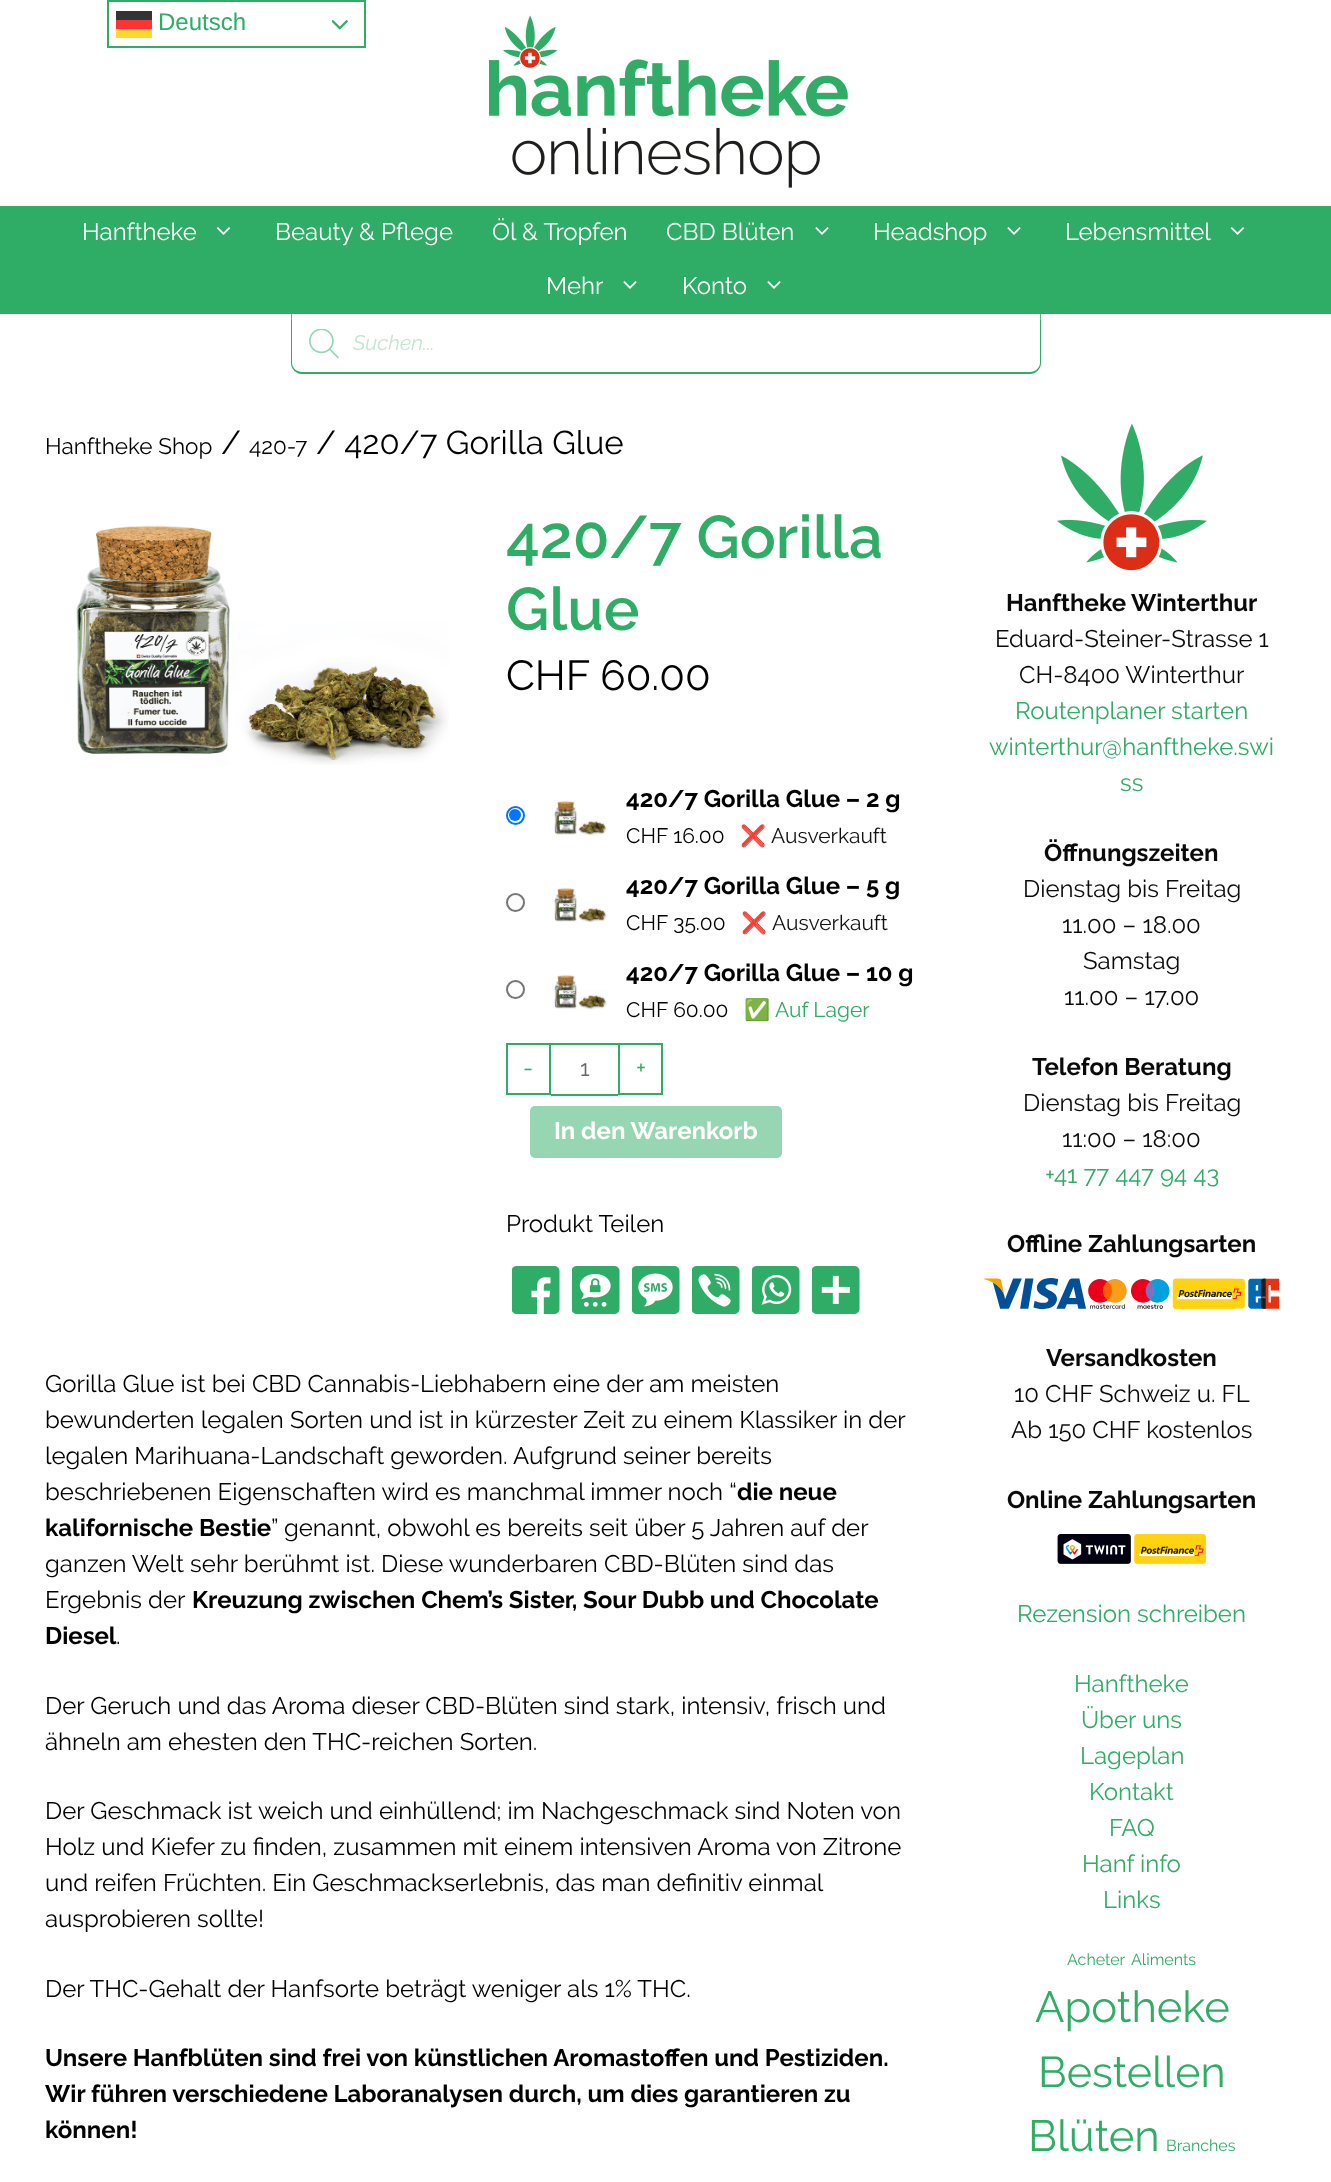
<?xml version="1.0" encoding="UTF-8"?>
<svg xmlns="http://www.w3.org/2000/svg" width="1331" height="2182">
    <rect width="100%" height="100%" fill="#FFFFFF"/>
    <rect x="108" y="1" width="257" height="46" fill="none" stroke="#2FAC66" stroke-width="2"/>
    <rect x="116" y="11" width="36" height="9" fill="#333333"/>
    <text x="158" y="30" font-family="Liberation Sans" font-size="24" fill="#2FAC66">Deutsch</text>
    <rect x="116" y="20" width="36" height="9" fill="#FF3333"/>
    <image x="332" y="20" width="16" height="10" href="img_01.png"/>
    <rect x="116" y="29" width="36" height="9" fill="#FFD633"/>
    <image x="489" y="15" width="359" height="173" href="img_02.png"/>
    <rect x="0" y="206" width="1331" height="108" fill="#2FAC66"/>
    <text x="82" y="240" font-family="Raleway" font-size="24" fill="#FFFFFF">Hanftheke</text>
    <image x="216" y="227" width="15" height="8" href="img_03.png"/>
    <text x="275" y="240" font-family="Raleway" font-size="24" fill="#FFFFFF">Beauty &amp; Pflege</text>
    <text x="492" y="240" font-family="Raleway" font-size="24" fill="#FFFFFF">Öl &amp; Tropfen</text>
    <text x="666" y="240" font-family="Raleway" font-size="24" fill="#FFFFFF">CBD Blüten</text>
    <image x="815" y="227" width="14" height="8" href="img_04.png"/>
    <text x="873" y="240" font-family="Raleway" font-size="24" fill="#FFFFFF">Headshop</text>
    <image x="1007" y="227" width="14" height="8" href="img_04.png"/>
    <text x="1065" y="240" font-family="Raleway" font-size="24" fill="#FFFFFF">Lebensmittel</text>
    <image x="1230" y="227" width="15" height="8" href="img_03.png"/>
    <text x="546" y="294" font-family="Raleway" font-size="24" fill="#FFFFFF">Mehr</text>
    <image x="623" y="281" width="14" height="8" href="img_04.png"/>
    <text x="682" y="294" font-family="Raleway" font-size="24" fill="#FFFFFF">Konto</text>
    <image x="767" y="281" width="14" height="8" href="img_04.png"/>
    <path d="M 291 314 H 1041 V 363 C 1041 369 1036 374 1030 374 H 302 C 296 374 291 369 291 363 Z M 292 314 H 1040 V 363 C 1040 368 1035 372 1030 372 H 302 C 297 372 292 368 292 363 Z" fill="#2FAC66" fill-rule="evenodd"/>
    <rect x="291" y="314" width="750" height="6" fill="#FFFFFF" fill-opacity="0.2"/>
    <image x="309" y="329" width="30" height="30" href="img_05.png"/>
    <text x="353" y="350" font-family="Raleway" font-size="21" font-style="italic" fill="#C1E6D1">Suchen...</text>
    <text x="45" y="454" font-family="Raleway" font-size="22.5" fill="#000000">Hanftheke Shop</text>
    <text x="221" y="454" font-family="Raleway" font-size="33" fill="#000000">/</text>
    <text x="249" y="454" font-family="Raleway" font-size="22.5" fill="#000000">420-7</text>
    <text x="316" y="454" font-family="Raleway" font-size="33" fill="#000000">/ 420/7 Gorilla Glue</text>
    <image x="76" y="525" width="373" height="240" href="img_06.png"/>
    <text font-family="Raleway" font-size="60" font-weight="600" fill="#2FAC66">
        <tspan x="506" y="558">420/7 Gorilla</tspan>
        <tspan x="506" y="630">Glue</tspan>
    </text>
    <text x="506" y="690" font-family="Raleway" font-size="42" fill="#000000">CHF 60.00</text>
    <circle cx="515.5" cy="815.5" r="8.5" fill="none" stroke="#0075FF" stroke-width="2"/>
    <circle cx="515" cy="815" r="6" fill="#0075FF"/>
    <image x="554" y="800" width="54" height="36" href="img_07.png"/>
    <text x="626" y="807" font-family="Raleway" font-size="24" font-weight="700" fill="#000000">420/7 Gorilla Glue – 2 g</text>
    <text x="626" y="843" font-family="Raleway" font-size="21" fill="#000000">CHF 16.00</text>
    <text x="740" y="843" font-family="Noto Color Emoji" font-size="21" fill="#111111">❌</text>
    <text x="771" y="843" font-family="Raleway" font-size="21" fill="#111111">Ausverkauft</text>
    <circle cx="515.5" cy="902.5" r="8.5" fill="none" stroke="#767676" stroke-width="2"/>
    <image x="554" y="887" width="54" height="36" href="img_07.png"/>
    <text x="626" y="894" font-family="Raleway" font-size="24" font-weight="700" fill="#000000">420/7 Gorilla Glue – 5 g</text>
    <text x="626" y="930" font-family="Raleway" font-size="21" fill="#000000">CHF 35.00</text>
    <text x="741" y="930" font-family="Noto Color Emoji" font-size="21" fill="#111111">❌</text>
    <text x="772" y="930" font-family="Raleway" font-size="21" fill="#111111">Ausverkauft</text>
    <circle cx="515.5" cy="989.5" r="8.5" fill="none" stroke="#767676" stroke-width="2"/>
    <image x="554" y="974" width="54" height="36" href="img_07.png"/>
    <text x="626" y="981" font-family="Raleway" font-size="24" font-weight="700" fill="#000000">420/7 Gorilla Glue – 10 g</text>
    <text x="626" y="1017" font-family="Raleway" font-size="21" fill="#000000">CHF 60.00</text>
    <text x="744" y="1017" font-family="Noto Color Emoji" font-size="21" fill="#2FAC66">✅</text>
    <text x="775" y="1017" font-family="Raleway" font-size="21" fill="#2FAC66">Auf Lager</text>
    <rect x="507" y="1044" width="43" height="50" fill="none" stroke="#2FAC66" stroke-width="2"/>
    <text x="523" y="1076" font-family="Raleway" font-size="24" fill="#2FAC66">-</text>
    <rect x="551" y="1043" width="67" height="2" fill="#2FAC66"/>
    <rect x="551" y="1094" width="67" height="2" fill="#2FAC66"/>
    <text x="580" y="1076" font-family="Raleway" font-size="22.5" fill="#666666">1</text>
    <rect x="619" y="1044" width="43" height="50" fill="none" stroke="#2FAC66" stroke-width="2"/>
    <text x="636" y="1076" font-family="Raleway" font-size="24" fill="#2FAC66">+</text>
    <rect x="530" y="1106" width="252" height="52" rx="5" fill="#97D6B3"/>
    <text x="554" y="1139" font-family="Raleway" font-size="24" font-weight="700" fill="#FFFFFF">In den Warenkorb</text>
    <text x="506" y="1232" font-family="Raleway" font-size="24" fill="#000000">Produkt Teilen</text>
    <image x="512" y="1266" width="48" height="48" href="img_08.png"/>
    <image x="572" y="1266" width="48" height="48" href="img_09.png"/>
    <image x="632" y="1266" width="48" height="48" href="img_10.png"/>
    <image x="692" y="1266" width="48" height="48" href="img_11.png"/>
    <image x="752" y="1266" width="48" height="48" href="img_12.png"/>
    <image x="812" y="1266" width="48" height="48" href="img_13.png"/>
    <text font-family="Raleway" font-size="24" fill="#000000">
        <tspan x="45" y="1392">Gorilla Glue ist bei CBD Cannabis-Liebhabern eine der am meisten</tspan>
        <tspan x="45" y="1428">bewunderten legalen Sorten und ist in kürzester Zeit zu einem Klassiker in der</tspan>
        <tspan x="45" y="1464">legalen Marihuana-Landschaft geworden. Aufgrund seiner bereits</tspan>
        <tspan x="45" y="1500">beschriebenen Eigenschaften wird es manchmal immer noch “</tspan>
    </text>
    <text x="737" y="1500" font-family="Raleway" font-size="24" font-weight="700" fill="#000000">die neue</text>
    <text x="45" y="1536" font-family="Raleway" font-size="24" font-weight="700" fill="#000000">kalifornische Bestie</text>
    <text x="271" y="1536" font-family="Raleway" font-size="24" fill="#000000">” genannt, obwohl es bereits seit über 5 Jahren auf der</text>
    <text font-family="Raleway" font-size="24" fill="#000000">
        <tspan x="45" y="1572">ganzen Welt sehr berühmt ist. Diese wunderbaren CBD-Blüten sind das</tspan>
        <tspan x="45" y="1608">Ergebnis der</tspan>
    </text>
    <text x="192" y="1608" font-family="Raleway" font-size="24" font-weight="700" fill="#000000">Kreuzung zwischen Chem’s Sister, Sour Dubb und Chocolate</text>
    <text x="45" y="1644" font-family="Raleway" font-size="24" font-weight="700" fill="#000000">Diesel</text>
    <text x="116" y="1644" font-family="Raleway" font-size="24" fill="#000000">.</text>
    <text font-family="Raleway" font-size="24" fill="#000000">
        <tspan x="45" y="1714">Der Geruch und das Aroma dieser CBD-Blüten sind stark, intensiv, frisch und</tspan>
        <tspan x="45" y="1750">ähneln am ehesten den THC-reichen Sorten.</tspan>
    </text>
    <text font-family="Raleway" font-size="24" fill="#000000">
        <tspan x="45" y="1819">Der Geschmack ist weich und einhüllend; im Nachgeschmack sind Noten von</tspan>
        <tspan x="45" y="1855">Holz und Kiefer zu finden, zusammen mit einem intensiven Aroma von Zitrone</tspan>
        <tspan x="45" y="1891">und reifen Früchten. Ein Geschmackserlebnis, das man definitiv einmal</tspan>
        <tspan x="45" y="1927">ausprobieren sollte!</tspan>
    </text>
    <text x="45" y="1997" font-family="Raleway" font-size="24" fill="#000000">Der THC-Gehalt der Hanfsorte beträgt weniger als 1% THC.</text>
    <text font-family="Raleway" font-size="24" font-weight="700" fill="#000000">
        <tspan x="45" y="2066">Unsere Hanfblüten sind frei von künstlichen Aromastoffen und Pestiziden.</tspan>
        <tspan x="45" y="2102">Wir führen verschiedene Laboranalysen durch, um dies garantieren zu</tspan>
        <tspan x="45" y="2138">können!</tspan>
    </text>
    <image x="1057" y="423" width="150" height="148" href="img_14.png"/>
    <text x="1006" y="611" font-family="Raleway" font-size="24" font-weight="700" fill="#0A0A0A">Hanftheke Winterthur</text>
    <text x="995" y="647" font-family="Raleway" font-size="24" fill="#0A0A0A">Eduard-Steiner-Strasse 1</text>
    <text x="1019" y="683" font-family="Raleway" font-size="24" fill="#0A0A0A">CH-8400 Winterthur</text>
    <text x="1015" y="719" font-family="Raleway" font-size="24" fill="#2FAC66">Routenplaner starten</text>
    <text x="989" y="755" font-family="Raleway" font-size="24" fill="#2FAC66">winterthur@hanftheke.swi</text>
    <text x="1120" y="791" font-family="Raleway" font-size="24" fill="#2FAC66">ss</text>
    <text x="1044" y="861" font-family="Raleway" font-size="24" font-weight="700" fill="#0A0A0A">Öffnungszeiten</text>
    <text x="1023" y="897" font-family="Raleway" font-size="24" fill="#0A0A0A">Dienstag bis Freitag</text>
    <text x="1062" y="933" font-family="Raleway" font-size="24" fill="#0A0A0A">11.00 – 18.00</text>
    <text x="1083" y="969" font-family="Raleway" font-size="24" fill="#0A0A0A">Samstag</text>
    <text x="1064" y="1005" font-family="Raleway" font-size="24" fill="#0A0A0A">11.00 – 17.00</text>
    <text x="1032" y="1075" font-family="Raleway" font-size="24" font-weight="700" fill="#0A0A0A">Telefon Beratung</text>
    <text x="1023" y="1111" font-family="Raleway" font-size="24" fill="#0A0A0A">Dienstag bis Freitag</text>
    <text x="1062" y="1147" font-family="Raleway" font-size="24" fill="#0A0A0A">11:00 – 18:00</text>
    <text x="1045" y="1183" font-family="Raleway" font-size="24" fill="#2FAC66">+41 77 447 94 43</text>
    <text x="1007" y="1252" font-family="Raleway" font-size="24" font-weight="700" fill="#0A0A0A">Offline Zahlungsarten</text>
    <image x="984" y="1278" width="296" height="32" href="img_15.png"/>
    <text x="1046" y="1366" font-family="Raleway" font-size="24" font-weight="700" fill="#0A0A0A">Versandkosten</text>
    <text x="1014" y="1402" font-family="Raleway" font-size="24" fill="#0A0A0A">10 CHF Schweiz u. FL</text>
    <text x="1011" y="1438" font-family="Raleway" font-size="24" fill="#0A0A0A">Ab 150 CHF kostenlos</text>
    <text x="1007" y="1508" font-family="Raleway" font-size="24" font-weight="700" fill="#0A0A0A">Online Zahlungsarten</text>
    <image x="1057" y="1534" width="149" height="30" href="img_16.png"/>
    <text x="1017" y="1622" font-family="Raleway" font-size="24" fill="#2FAC66">Rezension schreiben</text>
    <text x="1074" y="1692" font-family="Raleway" font-size="24" fill="#2FAC66">Hanftheke</text>
    <text x="1081" y="1728" font-family="Raleway" font-size="24" fill="#2FAC66">Über uns</text>
    <text x="1080" y="1764" font-family="Raleway" font-size="24" fill="#2FAC66">Lageplan</text>
    <text x="1089" y="1800" font-family="Raleway" font-size="24" fill="#2FAC66">Kontakt</text>
    <text x="1109" y="1836" font-family="Raleway" font-size="24" fill="#2FAC66">FAQ</text>
    <text x="1082" y="1872" font-family="Raleway" font-size="24" fill="#2FAC66">Hanf info</text>
    <text x="1103" y="1908" font-family="Raleway" font-size="24" fill="#2FAC66">Links</text>
    <text x="1067" y="1965" font-family="Raleway" font-size="16" fill="#2FAC66">Acheter</text>
    <text x="1131" y="1965" font-family="Raleway" font-size="16" fill="#2FAC66">Aliments</text>
    <text x="1035" y="2022" font-family="Raleway" font-size="43.5" fill="#2FAC66">Apotheke</text>
    <text x="1038" y="2087" font-family="Raleway" font-size="43" fill="#2FAC66">Bestellen</text>
    <text x="1028" y="2151" font-family="Raleway" font-size="43.5" fill="#2FAC66">Blüten</text>
    <text x="1166" y="2151" font-family="Raleway" font-size="16" fill="#2FAC66">Branches</text>
</svg>
